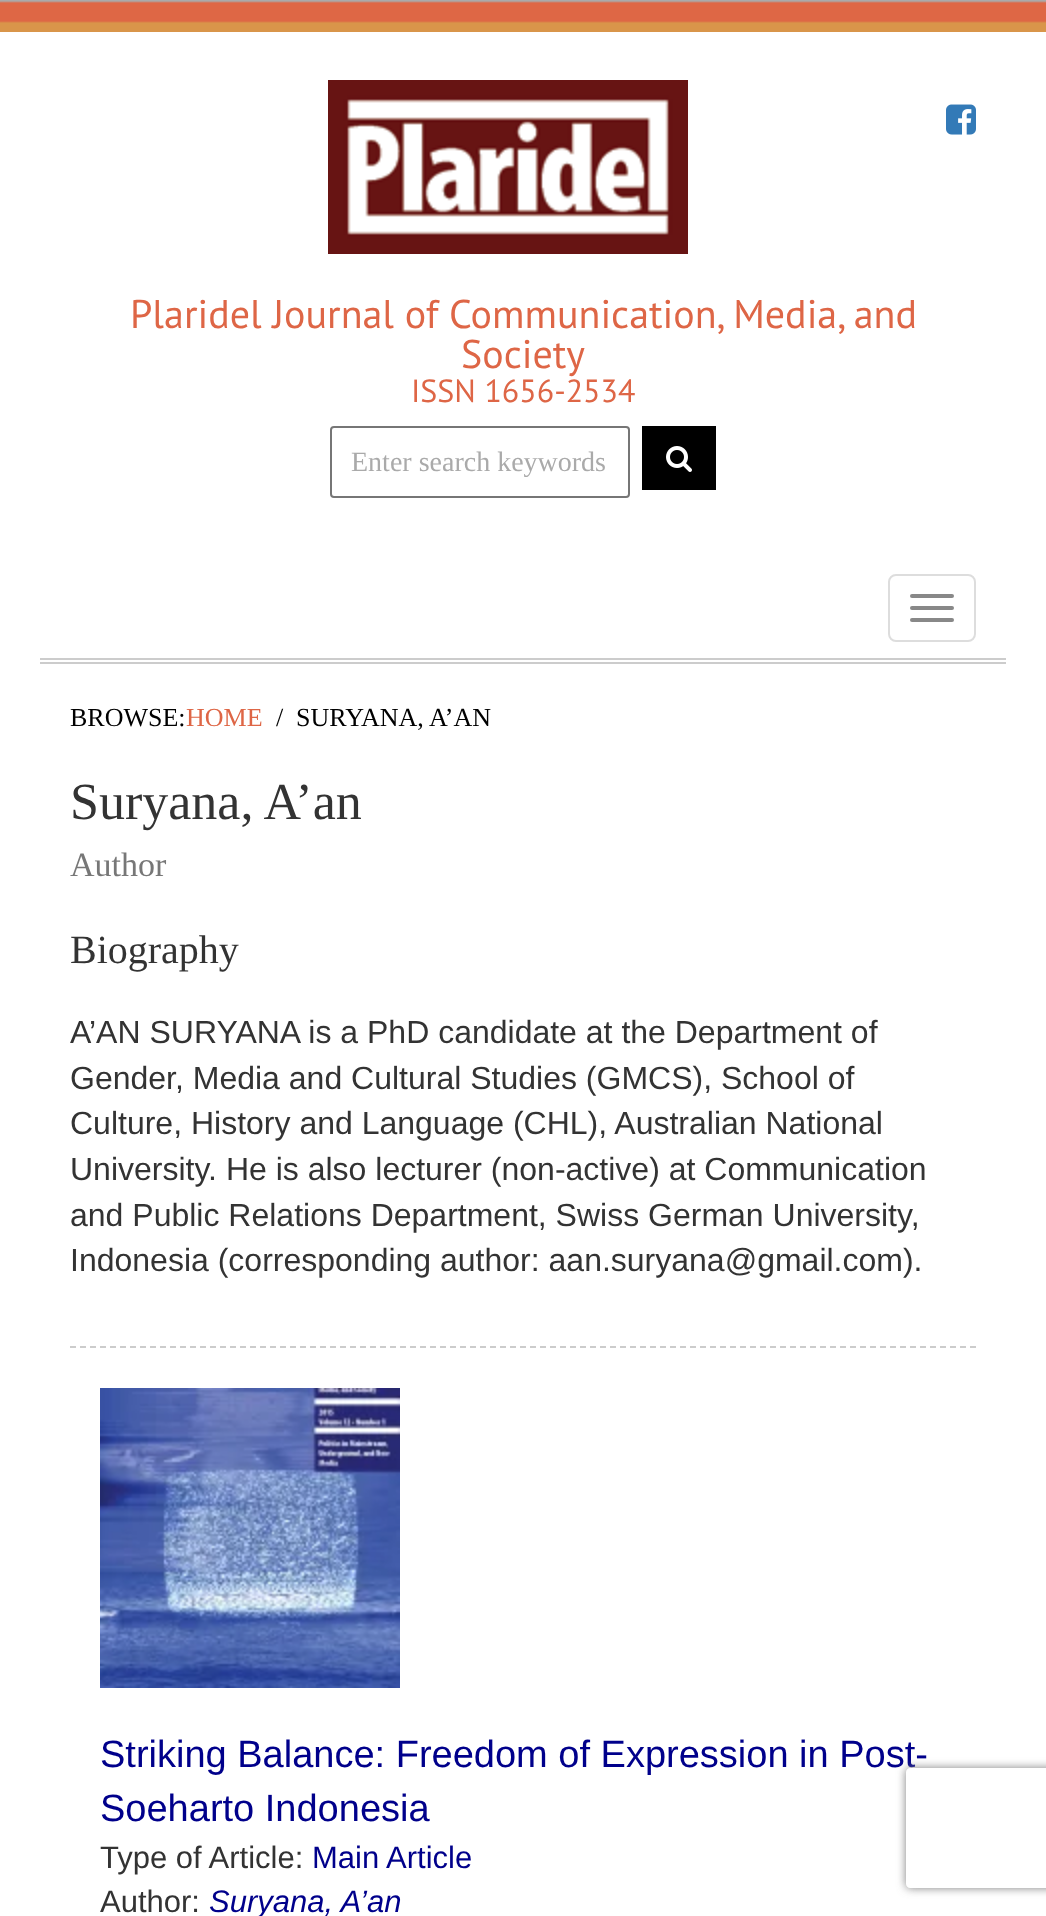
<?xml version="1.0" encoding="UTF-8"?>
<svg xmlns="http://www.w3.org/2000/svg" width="1046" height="1916">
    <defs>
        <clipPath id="clip1"><path d="M 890 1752 H 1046 V 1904 H 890 Z M 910 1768 H 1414 C 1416 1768 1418 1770 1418 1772 V 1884 C 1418 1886 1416 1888 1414 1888 H 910 C 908 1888 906 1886 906 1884 V 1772 C 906 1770 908 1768 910 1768 Z" clip-rule="evenodd"/></clipPath>
        <filter id="blur1" x="-50%" y="-200%" width="200%" height="500%"><feGaussianBlur stdDeviation="5"/></filter>
    </defs>
    <rect width="100%" height="100%" fill="#FFFFFF"/>
    <image x="0" y="0" width="1046" height="32" href="img_01.png"/>
    <image x="328" y="80" width="360" height="174" href="img_02.png"/>
    <image x="946" y="104" width="30" height="31" href="img_03.png"/>
    <text x="130" y="328" font-family="PT Sans" font-size="40" fill="#DE6646">Plaridel Journal of Communication, Media, and</text>
    <text x="461" y="368" font-family="PT Sans" font-size="40" fill="#DE6646">Society</text>
    <text x="411" y="402" font-family="PT Sans" font-size="32" fill="#DE6646">ISSN 1656-2534</text>
    <rect x="331" y="427" width="298" height="70" rx="3" fill="none" stroke="#767676" stroke-width="2"/>
    <text x="351" y="471" font-family="Tinos" font-size="28" fill="#AAAAAA">Enter search keywords</text>
    <rect x="642" y="426" width="74" height="64" fill="#000000"/>
    <image x="666" y="446" width="26" height="26" href="img_04.png"/>
    <rect x="40" y="658" width="966" height="2" fill="#CCCCCC"/>
    <rect x="40" y="662" width="966" height="2" fill="#CCCCCC"/>
    <rect x="889" y="575" width="86" height="66" rx="7" fill="none" stroke="#DDDDDD" stroke-width="2"/>
    <rect x="910" y="594" width="44" height="4" rx="2" fill="#888888"/>
    <rect x="910" y="606" width="44" height="4" rx="2" fill="#888888"/>
    <rect x="910" y="618" width="44" height="4" rx="2" fill="#888888"/>
    <text x="70" y="726" font-family="Tinos" font-size="26" fill="#000000">BROWSE:</text>
    <text x="186" y="726" font-family="Tinos" font-size="26" fill="#DE6646">HOME</text>
    <text x="276" y="726" font-family="Tinos" font-size="26" fill="#000000">/</text>
    <text x="296" y="726" font-family="Tinos" font-size="26" fill="#000000">SURYANA, A’AN</text>
    <text x="70" y="819" font-family="Tinos" font-size="52" fill="#333333">Suryana, A’an</text>
    <text x="70" y="876" font-family="Tinos" font-size="34" fill="#777777">Author</text>
    <path d="M 70 1347 H 976" fill="none" stroke="#CCCCCC" stroke-width="2" stroke-dasharray="6 4"/>
    <text x="70" y="963" font-family="Tinos" font-size="40" fill="#333333">Biography</text>
    <text font-family="Liberation Sans" font-size="32" fill="#333333">
        <tspan x="70" y="1043">A’AN SURYANA is a PhD candidate at the Department of</tspan>
        <tspan x="70" y="1089">Gender, Media and Cultural Studies (GMCS), School of</tspan>
        <tspan x="70" y="1134">Culture, History and Language (CHL), Australian National</tspan>
        <tspan x="70" y="1180">University. He is also lecturer (non-active) at Communication</tspan>
        <tspan x="70" y="1226">and Public Relations Department, Swiss German University,</tspan>
        <tspan x="70" y="1271">Indonesia (corresponding author: aan.suryana@gmail.com).</tspan>
    </text>
    <image x="100" y="1388" width="300" height="300" href="img_05.png"/>
    <text font-family="Liberation Sans" font-size="38" fill="#00008B">
        <tspan x="100" y="1767">Striking Balance: Freedom of Expression in Post-</tspan>
        <tspan x="100" y="1821">Soeharto Indonesia</tspan>
    </text>
    <text x="100" y="1868" font-family="Liberation Sans" font-size="31" fill="#333333">Type of Article:</text>
    <text x="312" y="1868" font-family="Liberation Sans" font-size="31" fill="#00008B">Main Article</text>
    <text x="100" y="1912" font-family="Liberation Sans" font-size="31" fill="#333333">Author:</text>
    <text x="209" y="1912" font-family="Liberation Sans" font-size="31" font-style="italic" fill="#00008B">Suryana, A’an</text>
    <g clip-path="url(#clip1)">
        <rect x="906" y="1768" width="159" height="120" rx="4" fill="#808080" filter="url(#blur1)"/>
    </g>
</svg>
